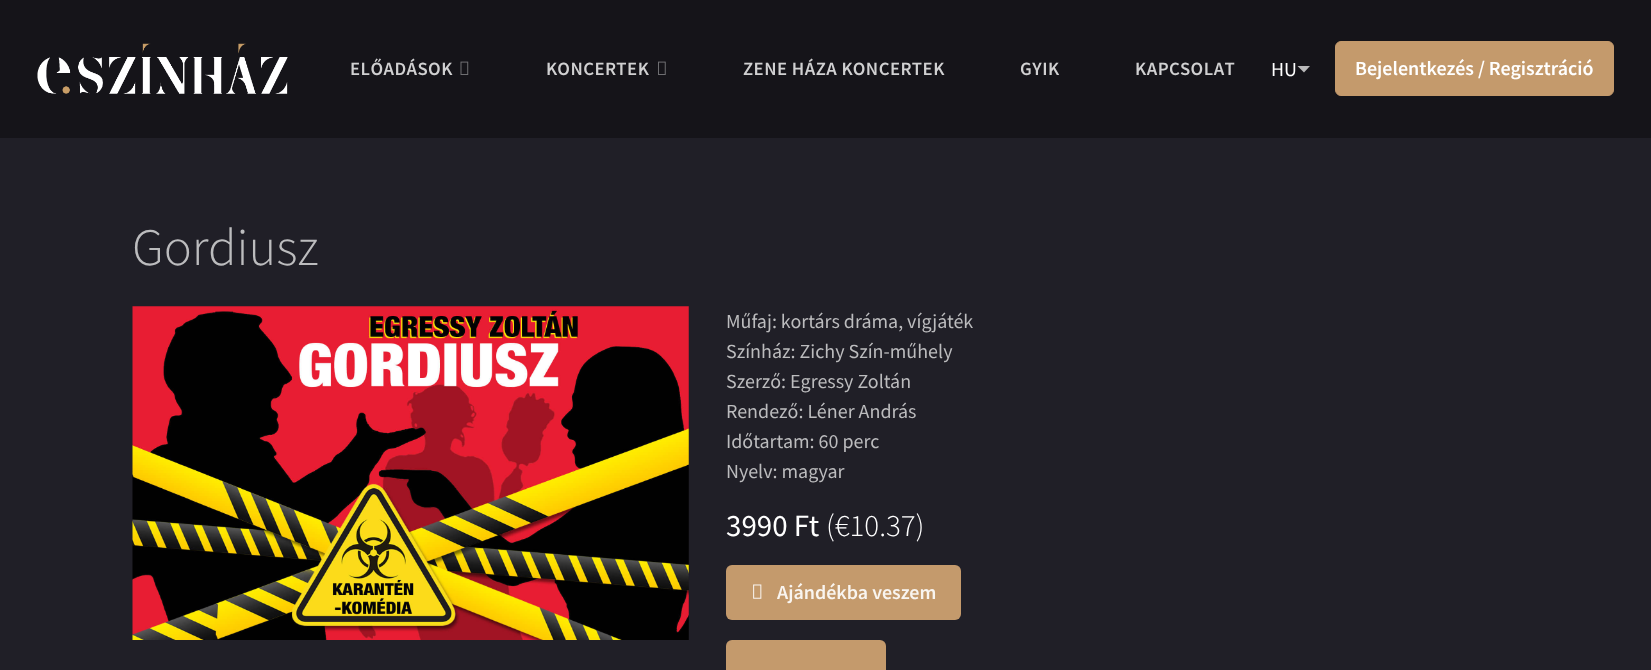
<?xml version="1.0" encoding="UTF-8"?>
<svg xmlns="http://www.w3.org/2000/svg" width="1651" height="670">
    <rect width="100%" height="100%" fill="#201F27"/>
    <rect x="0" y="0" width="1651" height="138" fill="#151419"/>
    <image x="37" y="43" width="251" height="51" href="img_01.png"/>
    <text x="350" y="75" font-family="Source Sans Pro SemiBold" font-size="18.75" font-weight="600" letter-spacing="0.5" fill="#D0D0D1">ELŐADÁSOK</text>
    <image x="460" y="61" width="9" height="14" href="img_02.png"/>
    <text x="546" y="75" font-family="Source Sans Pro SemiBold" font-size="18.75" font-weight="600" letter-spacing="0.5" fill="#D0D0D1">KONCERTEK</text>
    <image x="658" y="61" width="8" height="14" href="img_03.png"/>
    <text x="743" y="75" font-family="Source Sans Pro SemiBold" font-size="18.75" font-weight="600" letter-spacing="0.5" fill="#D0D0D1">ZENE HÁZA KONCERTEK</text>
    <text x="1020" y="75" font-family="Source Sans Pro SemiBold" font-size="18.75" font-weight="600" letter-spacing="0.5" fill="#D0D0D1">GYIK</text>
    <text x="1135" y="75" font-family="Source Sans Pro SemiBold" font-size="18.75" font-weight="600" letter-spacing="0.5" fill="#D0D0D1">KAPCSOLAT</text>
    <text x="1271" y="76" font-family="Source Sans Pro" font-size="20" fill="#FFFFFF">HU</text>
    <path d="M 1297.5 66 H 1310 L 1304 72.5 Z" fill="#B9B9BA"/>
    <rect x="1335.5" y="41.5" width="278" height="54" rx="5.5" fill="#C49A6C" stroke="#C49A6C"/>
    <text x="1355" y="75" font-family="Source Sans Pro SemiBold" font-size="20" font-weight="600" fill="#FFFFFF">Bejelentkezés / Regisztráció</text>
    <text x="132" y="265" font-family="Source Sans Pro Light" font-size="52.5" font-weight="300" fill="#BCBCBE">Gordiusz</text>
    <image x="132" y="306" width="557" height="334" href="img_04.png"/>
    <text font-family="Source Sans Pro" font-size="20" fill="#BCBCBE">
        <tspan x="726" y="328">Műfaj: kortárs dráma, vígjáték</tspan>
        <tspan x="726" y="358">Színház: Zichy Szín-műhely</tspan>
        <tspan x="726" y="388">Szerző: Egressy Zoltán</tspan>
        <tspan x="726" y="418">Rendező: Léner András</tspan>
        <tspan x="726" y="448">Időtartam: 60 perc</tspan>
        <tspan x="726" y="478">Nyelv: magyar</tspan>
    </text>
    <text x="726" y="536" font-family="Source Sans Pro" font-size="31" fill="#FFFFFF">3990 Ft</text>
    <text x="826" y="536" font-family="Source Sans Pro Light" font-size="31" font-weight="300" fill="#FFFFFF">(€10.37)</text>
    <rect x="726" y="565" width="235" height="55" rx="6" fill="#C49A6C"/>
    <image x="753" y="584" width="9" height="15" href="img_05.png"/>
    <text x="777" y="599" font-family="Source Sans Pro SemiBold" font-size="20" font-weight="600" fill="#F9F5F0">Ajándékba veszem</text>
    <rect x="726" y="640" width="160" height="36" rx="6" fill="#C49A6C"/>
</svg>
